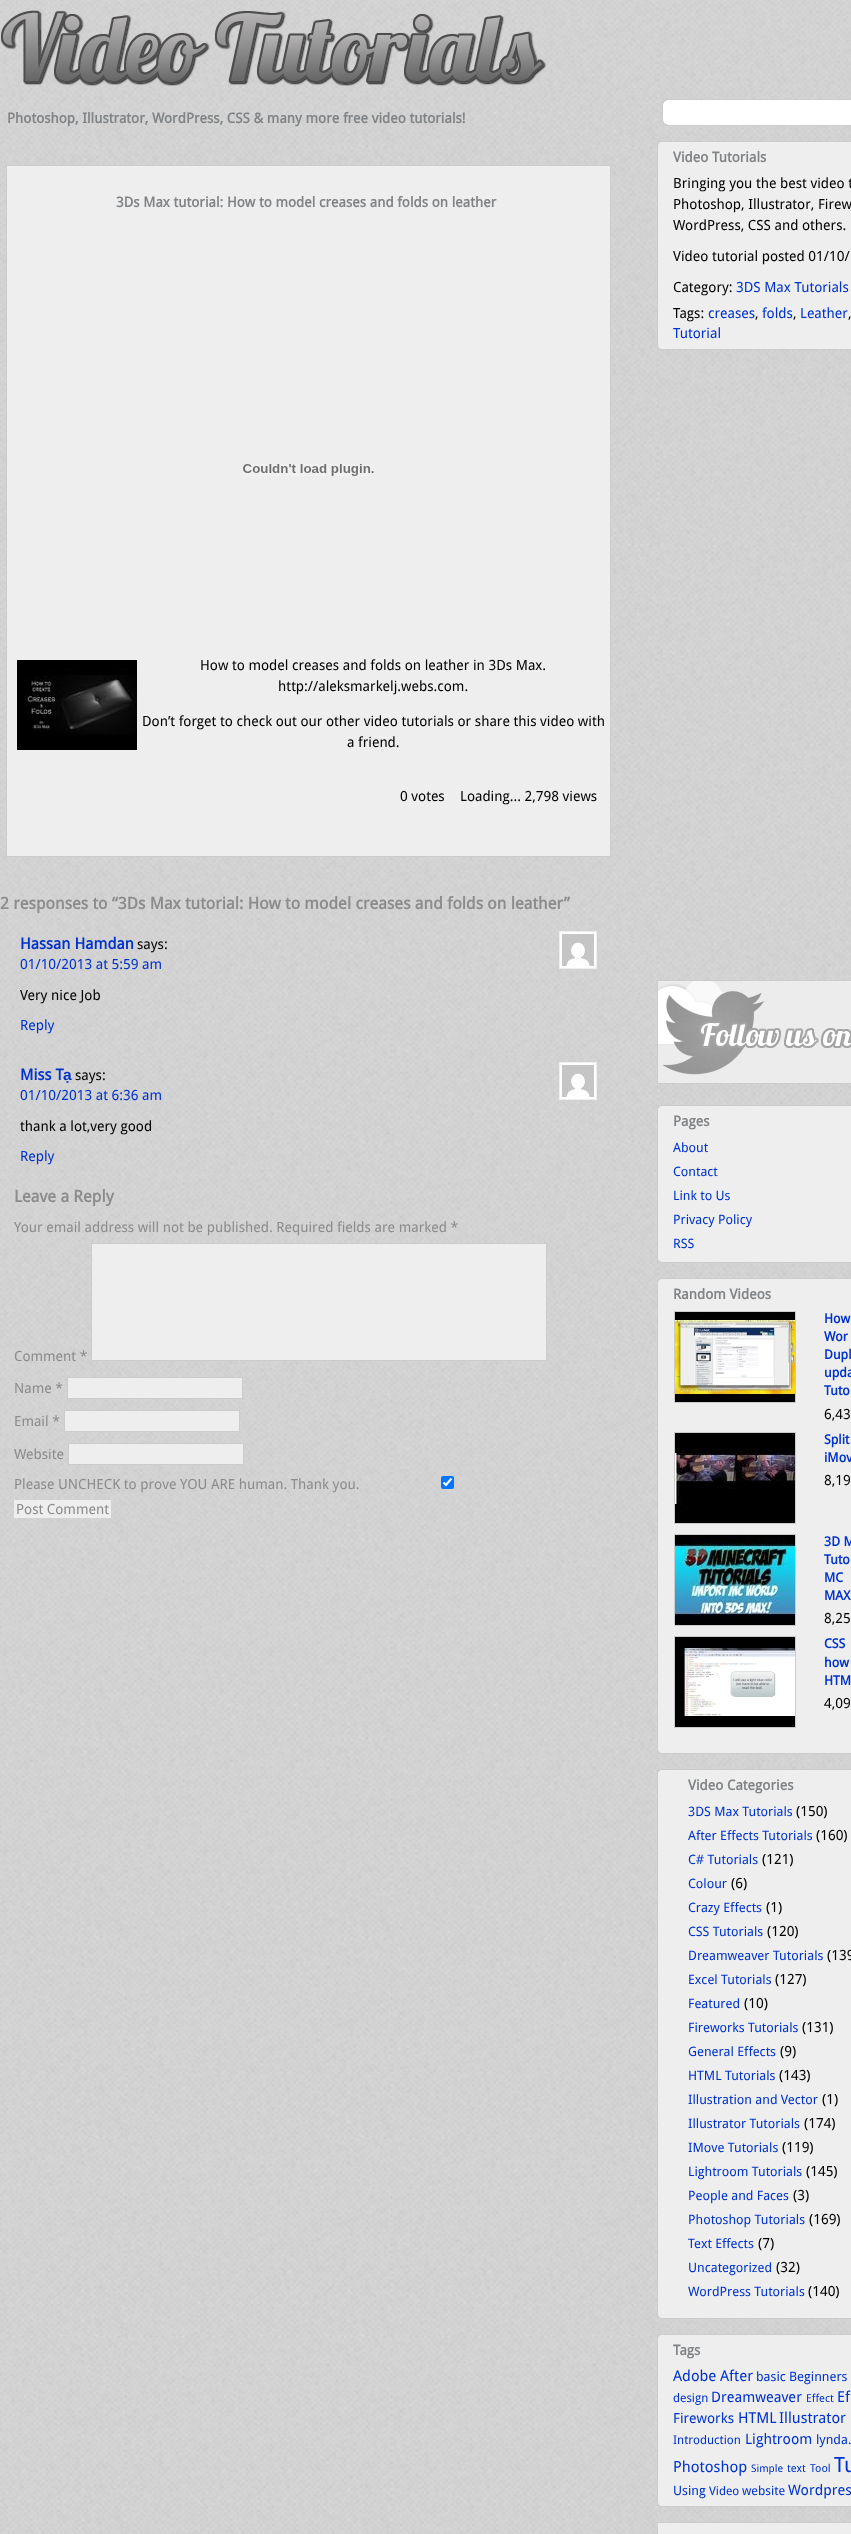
<?xml version="1.0" encoding="UTF-8"?>
<svg xmlns="http://www.w3.org/2000/svg" width="851" height="2534">
    <rect width="100%" height="100%" fill="#FFFFFF"/>
    <image x="0" y="0" width="851" height="2534" href="img_01.png"/>
    <image x="1" y="10" width="545" height="76" href="img_02.png"/>
    <text x="7" y="123" font-family="Droid Sans" font-size="14" font-weight="700" fill="#818486">Photoshop, Illustrator, WordPress, CSS &amp; many more free video tutorials!</text>
    <image x="662" y="99" width="189" height="27" href="img_03.png"/>
    <rect x="6.5" y="165.5" width="604" height="691" fill="#EEEEEE" stroke="#CCCCCC"/>
    <text x="116" y="207" font-family="Droid Sans" font-size="14" font-weight="700" fill="#818486">3Ds Max tutorial: How to model creases and folds on leather</text>
    <image x="243" y="464" width="131" height="12" href="img_04.png"/>
    <image x="17" y="660" width="120" height="90" href="img_05.png"/>
    <text x="200" y="670" font-family="Droid Sans" font-size="14" fill="#000000">How to model creases and folds on leather in 3Ds Max.</text>
    <text x="278" y="691" font-family="Droid Sans" font-size="14" fill="#000000">http://aleksmarkelj.webs.com.</text>
    <text x="142" y="726" font-family="Droid Sans" font-size="14" fill="#000000">Don’t forget to check out our other video tutorials or share this video with</text>
    <text x="347" y="747" font-family="Droid Sans" font-size="14" fill="#000000">a friend.</text>
    <text x="400" y="801" font-family="Droid Sans" font-size="14" fill="#000000">0 votes</text>
    <text x="460" y="801" font-family="Droid Sans" font-size="14" fill="#000000">Loading... 2,798 views</text>
    <text x="0" y="909" font-family="Droid Sans" font-size="16.4" font-weight="700" fill="#8C8C8C">2 responses to “3Ds Max tutorial: How to model creases and folds on leather”</text>
    <text x="20" y="949" font-family="Droid Sans" font-size="15.5" font-weight="700" fill="#0033CC">Hassan Hamdan</text>
    <text x="137" y="949" font-family="Droid Sans" font-size="14" fill="#000000">says:</text>
    <rect x="559.5" y="931.5" width="37" height="37" fill="#FFFFFF" stroke="#EEEEEE"/>
    <image x="562" y="934" width="32" height="32" href="img_06.png"/>
    <text x="20" y="969" font-family="Droid Sans" font-size="14" fill="#0033CC">01/10/2013 at 5:59 am</text>
    <text x="20" y="1000" font-family="Droid Sans" font-size="14" fill="#000000">Very nice Job</text>
    <text x="20" y="1030" font-family="Droid Sans" font-size="14" fill="#0033CC">Reply</text>
    <text x="20" y="1080" font-family="Droid Sans" font-size="15.5" font-weight="700" fill="#0033CC">Miss T</text>
    <text x="63" y="1080" font-family="Liberation Sans" font-size="15.5" font-weight="700" fill="#0033CC">ạ</text>
    <text x="75" y="1080" font-family="Droid Sans" font-size="14" fill="#000000">says:</text>
    <rect x="559.5" y="1062.5" width="37" height="37" fill="#FFFFFF" stroke="#EEEEEE"/>
    <image x="562" y="1065" width="32" height="32" href="img_06.png"/>
    <text x="20" y="1100" font-family="Droid Sans" font-size="14" fill="#0033CC">01/10/2013 at 6:36 am</text>
    <text x="20" y="1131" font-family="Droid Sans" font-size="14" fill="#000000">thank a lot,very good</text>
    <text x="20" y="1161" font-family="Droid Sans" font-size="14" fill="#0033CC">Reply</text>
    <text x="14" y="1202" font-family="Droid Sans" font-size="16.4" font-weight="700" fill="#8C8C8C">Leave a Reply</text>
    <text x="14" y="1232" font-family="Droid Sans" font-size="14" fill="#8C8C8C">Your email address will not be published. Required fields are marked *</text>
    <text x="14" y="1361" font-family="Droid Sans" font-size="14" fill="#8C8C8C">Comment *</text>
    <rect x="91.5" y="1243.5" width="455" height="117" fill="#EEEEEE" stroke="#CCCCCC"/>
    <text x="14" y="1393" font-family="Droid Sans" font-size="14" fill="#8C8C8C">Name *</text>
    <rect x="67.5" y="1377.5" width="175" height="21" fill="#EEEEEE" stroke="#CCCCCC"/>
    <text x="14" y="1426" font-family="Droid Sans" font-size="14" fill="#8C8C8C">Email *</text>
    <rect x="64.5" y="1410.5" width="175" height="21" fill="#EEEEEE" stroke="#CCCCCC"/>
    <text x="14" y="1459" font-family="Droid Sans" font-size="14" fill="#8C8C8C">Website</text>
    <rect x="68.5" y="1443.5" width="175" height="21" fill="#EEEEEE" stroke="#CCCCCC"/>
    <text x="14" y="1489" font-family="Droid Sans" font-size="14" fill="#8C8C8C">Please UNCHECK to prove YOU ARE human. Thank you.</text>
    <rect x="441" y="1476" width="13" height="13" rx="2" fill="#0075FF"/>
    <path d="M 443.5 1482.5 L 446 1485 L 451.5 1478.5" fill="none" stroke="#FFFFFF" stroke-width="2.1"/>
    <rect x="14" y="1500" width="97" height="18" fill="#EEEEEE"/>
    <text x="16" y="1514" font-family="Droid Sans" font-size="14" fill="#8C8C8C">Post Comment</text>
    <rect x="657.5" y="141.5" width="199" height="208" rx="4.5" fill="#EEEEEE" stroke="#CCCCCC"/>
    <text x="673" y="162" font-family="Droid Sans" font-size="14" font-weight="700" fill="#818486">Video Tutorials</text>
    <text font-family="Droid Sans" font-size="14" fill="#000000">
        <tspan x="673" y="188">Bringing you the best video t</tspan>
        <tspan x="673" y="209">Photoshop, Illustrator, Firew</tspan>
        <tspan x="673" y="230">WordPress, CSS and others.</tspan>
    </text>
    <text x="673" y="261" font-family="Droid Sans" font-size="14" fill="#000000">Video tutorial posted 01/10/</text>
    <text x="673" y="292" font-family="Droid Sans" font-size="14" fill="#000000">Category:</text>
    <text x="736" y="292" font-family="Droid Sans" font-size="14" fill="#0033CC">3DS Max Tutorials</text>
    <text x="673" y="318" font-family="Droid Sans" font-size="14" fill="#000000">Tags:</text>
    <text x="708" y="318" font-family="Droid Sans" font-size="14" fill="#0033CC">creases</text>
    <text x="755" y="318" font-family="Droid Sans" font-size="14" fill="#000000">,</text>
    <text x="762" y="318" font-family="Droid Sans" font-size="14" fill="#0033CC">folds</text>
    <text x="793" y="318" font-family="Droid Sans" font-size="14" fill="#000000">,</text>
    <text x="800" y="318" font-family="Droid Sans" font-size="14" fill="#0033CC">Leather</text>
    <text x="848" y="318" font-family="Droid Sans" font-size="14" fill="#000000">,</text>
    <text x="673" y="338" font-family="Droid Sans" font-size="14" fill="#0033CC">Tutorial</text>
    <image x="657" y="980" width="194" height="104" href="img_07.png"/>
    <rect x="657.5" y="1105.5" width="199" height="157" rx="4.5" fill="#EEEEEE" stroke="#CCCCCC"/>
    <text x="673" y="1126" font-family="Droid Sans" font-size="14" font-weight="700" fill="#818486">Pages</text>
    <text font-family="Droid Sans" font-size="13" fill="#0033CC">
        <tspan x="673" y="1152">About</tspan>
        <tspan x="673" y="1176">Contact</tspan>
        <tspan x="673" y="1200">Link to Us</tspan>
        <tspan x="673" y="1224">Privacy Policy</tspan>
        <tspan x="673" y="1248">RSS</tspan>
    </text>
    <rect x="657.5" y="1278.5" width="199" height="475" rx="4.5" fill="#EEEEEE" stroke="#CCCCCC"/>
    <text x="673" y="1299" font-family="Droid Sans" font-size="14" font-weight="700" fill="#818486">Random Videos</text>
    <rect x="674.5" y="1311.5" width="121" height="91" fill="none" stroke="#CCCCCC"/>
    <image x="675" y="1312" width="120" height="90" href="img_08.png"/>
    <text font-family="Droid Sans" font-size="13" font-weight="700" fill="#0033CC">
        <tspan x="824" y="1323">How</tspan>
        <tspan x="824" y="1341">Wor</tspan>
        <tspan x="824" y="1359">Dupl</tspan>
        <tspan x="824" y="1377">upda</tspan>
        <tspan x="824" y="1395">Tuto</tspan>
    </text>
    <text x="824" y="1419" font-family="Droid Sans" font-size="14" fill="#000000">6,43</text>
    <rect x="674.5" y="1432.5" width="121" height="91" fill="none" stroke="#CCCCCC"/>
    <image x="675" y="1433" width="120" height="90" href="img_09.png"/>
    <text font-family="Droid Sans" font-size="13" font-weight="700" fill="#0033CC">
        <tspan x="824" y="1444">Split</tspan>
        <tspan x="824" y="1462">iMov</tspan>
    </text>
    <text x="824" y="1485" font-family="Droid Sans" font-size="14" fill="#000000">8,19</text>
    <rect x="674.5" y="1534.5" width="121" height="91" fill="none" stroke="#CCCCCC"/>
    <image x="675" y="1535" width="120" height="90" href="img_10.png"/>
    <text font-family="Droid Sans" font-size="13" font-weight="700" fill="#0033CC">
        <tspan x="824" y="1546">3D M</tspan>
        <tspan x="824" y="1564">Tuto</tspan>
        <tspan x="824" y="1582">MC</tspan>
        <tspan x="824" y="1600">MAX</tspan>
    </text>
    <text x="824" y="1623" font-family="Droid Sans" font-size="14" fill="#000000">8,25</text>
    <rect x="674.5" y="1636.5" width="121" height="91" fill="none" stroke="#CCCCCC"/>
    <image x="675" y="1637" width="120" height="90" href="img_11.png"/>
    <text font-family="Droid Sans" font-size="13" font-weight="700" fill="#0033CC">
        <tspan x="824" y="1648">CSS</tspan>
        <tspan x="824" y="1667">how</tspan>
        <tspan x="824" y="1685">HTM</tspan>
    </text>
    <text x="824" y="1708" font-family="Droid Sans" font-size="14" fill="#000000">4,09</text>
    <rect x="657.5" y="1769.5" width="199" height="549" rx="4.5" fill="#EEEEEE" stroke="#CCCCCC"/>
    <text x="688" y="1790" font-family="Droid Sans" font-size="14" font-weight="700" fill="#818486">Video Categories</text>
    <text x="688" y="1816" font-family="Droid Sans" font-size="13" fill="#0033CC">3DS Max Tutorials</text>
    <text x="796" y="1816" font-family="Droid Sans" font-size="14" fill="#000000">(150)</text>
    <text x="688" y="1840" font-family="Droid Sans" font-size="13" fill="#0033CC">After Effects Tutorials</text>
    <text x="816" y="1840" font-family="Droid Sans" font-size="14" fill="#000000">(160)</text>
    <text x="688" y="1864" font-family="Droid Sans" font-size="13" fill="#0033CC">C# Tutorials</text>
    <text x="762" y="1864" font-family="Droid Sans" font-size="14" fill="#000000">(121)</text>
    <text x="688" y="1888" font-family="Droid Sans" font-size="13" fill="#0033CC">Colour</text>
    <text x="731" y="1888" font-family="Droid Sans" font-size="14" fill="#000000">(6)</text>
    <text x="688" y="1912" font-family="Droid Sans" font-size="13" fill="#0033CC">Crazy Effects</text>
    <text x="766" y="1912" font-family="Droid Sans" font-size="14" fill="#000000">(1)</text>
    <text x="688" y="1936" font-family="Droid Sans" font-size="13" fill="#0033CC">CSS Tutorials</text>
    <text x="767" y="1936" font-family="Droid Sans" font-size="14" fill="#000000">(120)</text>
    <text x="688" y="1960" font-family="Droid Sans" font-size="13" fill="#0033CC">Dreamweaver Tutorials</text>
    <text x="827" y="1960" font-family="Droid Sans" font-size="14" fill="#000000">(139</text>
    <text x="688" y="1984" font-family="Droid Sans" font-size="13" fill="#0033CC">Excel Tutorials</text>
    <text x="775" y="1984" font-family="Droid Sans" font-size="14" fill="#000000">(127)</text>
    <text x="688" y="2008" font-family="Droid Sans" font-size="13" fill="#0033CC">Featured</text>
    <text x="744" y="2008" font-family="Droid Sans" font-size="14" fill="#000000">(10)</text>
    <text x="688" y="2032" font-family="Droid Sans" font-size="13" fill="#0033CC">Fireworks Tutorials</text>
    <text x="802" y="2032" font-family="Droid Sans" font-size="14" fill="#000000">(131)</text>
    <text x="688" y="2056" font-family="Droid Sans" font-size="13" fill="#0033CC">General Effects</text>
    <text x="780" y="2056" font-family="Droid Sans" font-size="14" fill="#000000">(9)</text>
    <text x="688" y="2080" font-family="Droid Sans" font-size="13" fill="#0033CC">HTML Tutorials</text>
    <text x="779" y="2080" font-family="Droid Sans" font-size="14" fill="#000000">(143)</text>
    <text x="688" y="2104" font-family="Droid Sans" font-size="13" fill="#0033CC">Illustration and Vector</text>
    <text x="822" y="2104" font-family="Droid Sans" font-size="14" fill="#000000">(1)</text>
    <text x="688" y="2128" font-family="Droid Sans" font-size="13" fill="#0033CC">Illustrator Tutorials</text>
    <text x="804" y="2128" font-family="Droid Sans" font-size="14" fill="#000000">(174)</text>
    <text x="688" y="2152" font-family="Droid Sans" font-size="13" fill="#0033CC">IMove Tutorials</text>
    <text x="782" y="2152" font-family="Droid Sans" font-size="14" fill="#000000">(119)</text>
    <text x="688" y="2176" font-family="Droid Sans" font-size="13" fill="#0033CC">Lightroom Tutorials</text>
    <text x="806" y="2176" font-family="Droid Sans" font-size="14" fill="#000000">(145)</text>
    <text x="688" y="2200" font-family="Droid Sans" font-size="13" fill="#0033CC">People and Faces</text>
    <text x="793" y="2200" font-family="Droid Sans" font-size="14" fill="#000000">(3)</text>
    <text x="688" y="2224" font-family="Droid Sans" font-size="13" fill="#0033CC">Photoshop Tutorials</text>
    <text x="809" y="2224" font-family="Droid Sans" font-size="14" fill="#000000">(169)</text>
    <text x="688" y="2248" font-family="Droid Sans" font-size="13" fill="#0033CC">Text Effects</text>
    <text x="758" y="2248" font-family="Droid Sans" font-size="14" fill="#000000">(7)</text>
    <text x="688" y="2272" font-family="Droid Sans" font-size="13" fill="#0033CC">Uncategorized</text>
    <text x="776" y="2272" font-family="Droid Sans" font-size="14" fill="#000000">(32)</text>
    <text x="688" y="2296" font-family="Droid Sans" font-size="13" fill="#0033CC">WordPress Tutorials</text>
    <text x="808" y="2296" font-family="Droid Sans" font-size="14" fill="#000000">(140)</text>
    <rect x="657.5" y="2334.5" width="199" height="172" rx="4.5" fill="#EEEEEE" stroke="#CCCCCC"/>
    <text x="673" y="2355" font-family="Droid Sans" font-size="14" font-weight="700" fill="#818486">Tags</text>
    <text x="673" y="2381" font-family="Droid Sans" font-size="15" fill="#0033CC">Adobe</text>
    <text x="720" y="2381" font-family="Droid Sans" font-size="15" fill="#0033CC">After</text>
    <text x="756" y="2381" font-family="Droid Sans" font-size="13" fill="#0033CC">basic</text>
    <text x="789" y="2381" font-family="Droid Sans" font-size="13" fill="#0033CC">Beginners</text>
    <text x="673" y="2402" font-family="Droid Sans" font-size="12" fill="#0033CC">design</text>
    <text x="711" y="2402" font-family="Droid Sans" font-size="14.5" fill="#0033CC">Dreamweaver</text>
    <text x="806" y="2402" font-family="Droid Sans" font-size="11" fill="#0033CC">Effect</text>
    <text x="837" y="2402" font-family="Droid Sans" font-size="15" fill="#0033CC">Ef</text>
    <text x="673" y="2423" font-family="Droid Sans" font-size="14" fill="#0033CC">Fireworks</text>
    <text x="738" y="2423" font-family="Droid Sans" font-size="15" fill="#0033CC">HTML</text>
    <text x="779" y="2423" font-family="Droid Sans" font-size="15" fill="#0033CC">Illustrator</text>
    <text x="673" y="2444" font-family="Droid Sans" font-size="12" fill="#0033CC">Introduction</text>
    <text x="745" y="2444" font-family="Droid Sans" font-size="14.5" fill="#0033CC">Lightroom</text>
    <text x="816" y="2444" font-family="Droid Sans" font-size="13" fill="#0033CC">lynda.</text>
    <text x="673" y="2472" font-family="Droid Sans" font-size="15.25" fill="#0033CC">Photoshop</text>
    <text x="751" y="2472" font-family="Droid Sans" font-size="10.5" fill="#0033CC">Simple</text>
    <text x="787" y="2472" font-family="Droid Sans" font-size="11" fill="#0033CC">text</text>
    <text x="810" y="2472" font-family="Droid Sans" font-size="11" fill="#0033CC">Tool</text>
    <text x="834" y="2472" font-family="Droid Sans" font-size="21" fill="#0033CC">Tu</text>
    <text x="673" y="2495" font-family="Droid Sans" font-size="13" fill="#0033CC">Using</text>
    <text x="709" y="2495" font-family="Droid Sans" font-size="12" fill="#0033CC">Video</text>
    <text x="742" y="2495" font-family="Droid Sans" font-size="12.5" fill="#0033CC">website</text>
    <text x="788" y="2495" font-family="Droid Sans" font-size="14.5" fill="#0033CC">Wordpres</text>
    <rect x="657.5" y="2522.5" width="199" height="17" rx="4.5" fill="#EEEEEE" stroke="#CCCCCC"/>
    <rect x="658" y="2523" width="3" height="3" fill="#EEEEEE"/>
</svg>
